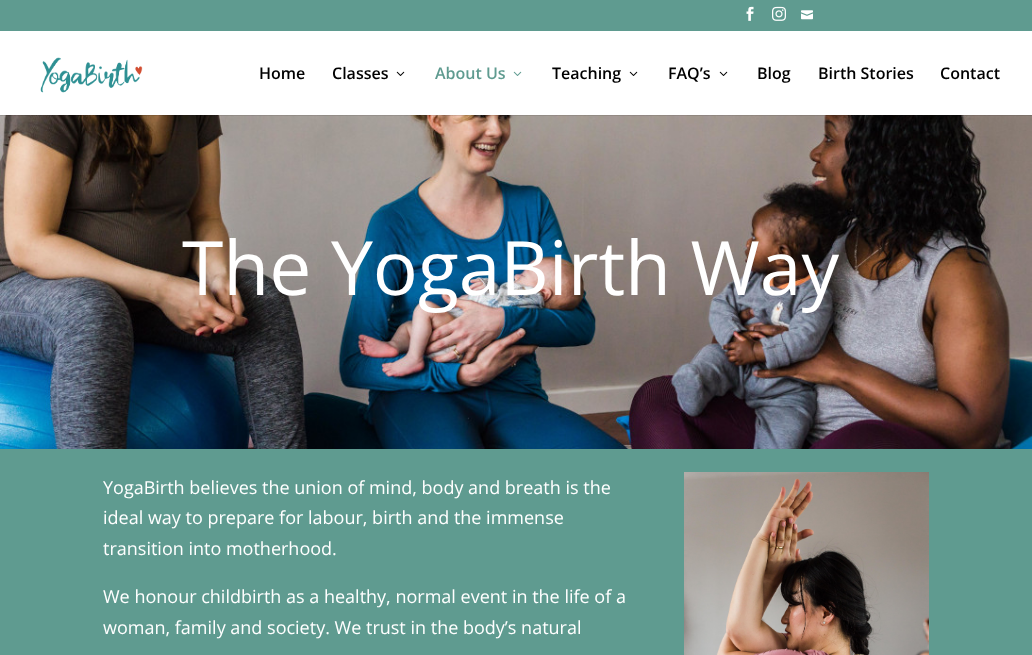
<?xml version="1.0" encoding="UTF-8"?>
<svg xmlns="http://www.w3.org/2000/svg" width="1032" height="655">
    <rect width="100%" height="100%" fill="#5F9B90"/>
    <image x="746" y="6" width="8" height="15" href="img_01.png"/>
    <image x="772" y="6" width="14" height="15" href="img_02.png"/>
    <image x="801" y="10" width="12" height="10" href="img_03.png"/>
    <image x="0" y="115" width="1032" height="334" href="img_07.png"/>
    <rect x="0" y="115" width="1032" height="1" fill="#000000" fill-opacity="0.1"/>
    <rect x="0" y="31" width="1032" height="84" fill="#FFFFFF"/>
    <image x="40" y="57" width="103" height="36" href="img_04.png"/>
    <text x="259" y="79" font-family="Open Sans" font-size="16" font-weight="600" fill="#000000">Home</text>
    <text x="332" y="79" font-family="Open Sans" font-size="16" font-weight="600" fill="#000000">Classes</text>
    <image x="396" y="71" width="9" height="5" href="img_05.png"/>
    <text x="435" y="79" font-family="Open Sans" font-size="16" font-weight="600" fill="#5F9B90">About Us</text>
    <image x="513" y="71" width="9" height="5" href="img_06.png"/>
    <text x="552" y="79" font-family="Open Sans" font-size="16" font-weight="600" fill="#000000">Teaching</text>
    <image x="629" y="71" width="9" height="5" href="img_05.png"/>
    <text x="668" y="79" font-family="Open Sans" font-size="16" font-weight="600" fill="#000000">FAQ’s</text>
    <image x="719" y="71" width="9" height="5" href="img_05.png"/>
    <text x="757" y="79" font-family="Open Sans" font-size="16" font-weight="600" fill="#000000">Blog</text>
    <text x="818" y="79" font-family="Open Sans" font-size="16" font-weight="600" fill="#000000">Birth Stories</text>
    <text x="940" y="79" font-family="Open Sans" font-size="16" font-weight="600" fill="#000000">Contact</text>
    <text x="182" y="295" font-family="Open Sans" font-size="75" fill="#FFFFFF">The YogaBirth Way</text>
    <text font-family="Open Sans" font-size="18" fill="#FFFFFF">
        <tspan x="103" y="494">YogaBirth believes the union of mind, body and breath is the</tspan>
        <tspan x="103" y="524">ideal way to prepare for labour, birth and the immense</tspan>
        <tspan x="103" y="555">transition into motherhood.</tspan>
    </text>
    <text font-family="Open Sans" font-size="18" fill="#FFFFFF">
        <tspan x="103" y="603">We honour childbirth as a healthy, normal event in the life of a</tspan>
        <tspan x="103" y="634">woman, family and society. We trust in the body’s natural</tspan>
    </text>
    <image x="684" y="472" width="245" height="183" href="img_08.png"/>
</svg>
